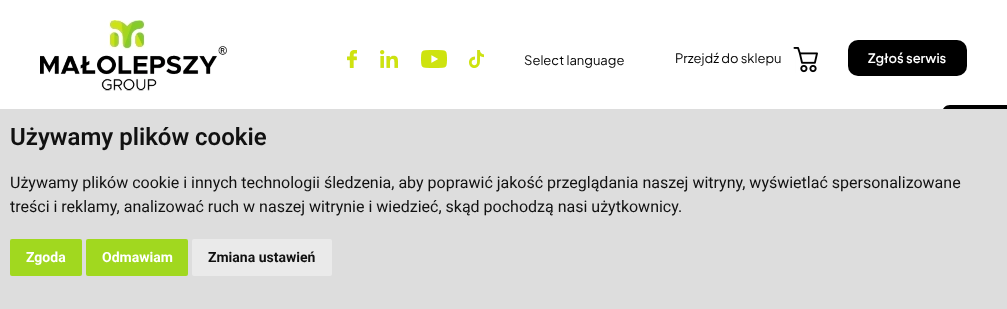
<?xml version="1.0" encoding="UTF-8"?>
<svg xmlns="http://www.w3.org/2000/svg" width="1007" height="309">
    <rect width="100%" height="100%" fill="#FFFFFF"/>
    <image x="40" y="20" width="187" height="71" href="img_01.png"/>
    <image x="347" y="50" width="10" height="18" href="img_02.png"/>
    <image x="380" y="50" width="18" height="18" href="img_03.png"/>
    <image x="421" y="50" width="26" height="18" href="img_04.png"/>
    <image x="469" y="50" width="15" height="18" href="img_05.png"/>
    <text x="524" y="65" font-family="Plus Jakarta Sans" font-size="13" fill="#000000">Select language</text>
    <text x="675" y="63" font-family="Plus Jakarta Sans" font-size="13" fill="#000000">Przejdź do sklepu</text>
    <image x="793" y="47" width="25" height="26" href="img_06.png"/>
    <rect x="848" y="40" width="119" height="36" rx="10" fill="#000000"/>
    <text x="868" y="63" font-family="Plus Jakarta Sans" font-size="13" font-weight="600" fill="#FFFFFF">Zgłoś serwis</text>
    <path d="M 950 105 H 1007 V 172 H 950 C 945.5 172 942 168.5 942 164 V 113 C 942 108.5 945.5 105 950 105 Z" fill="#000000"/>
    <rect x="0" y="109" width="1007" height="200" fill="#DDDDDD"/>
    <text x="10" y="145" font-family="Roboto" font-size="24" font-weight="600" fill="#111111">Używamy plików cookie</text>
    <text font-family="Roboto" font-size="16" fill="#111111">
        <tspan x="10" y="188">Używamy plików cookie i innych technologii śledzenia, aby poprawić jakość przeglądania naszej witryny, wyświetlać spersonalizowane</tspan>
        <tspan x="10" y="212">treści i reklamy, analizować ruch w naszej witrynie i wiedzieć, skąd pochodzą nasi użytkownicy.</tspan>
    </text>
    <rect x="10" y="239" width="72" height="37" rx="2" fill="#A1D81F"/>
    <text x="26" y="262" font-family="Roboto" font-size="14" font-weight="700" fill="#FFFFFF">Zgoda</text>
    <rect x="86" y="239" width="102" height="37" rx="2" fill="#A1D81F"/>
    <text x="102" y="262" font-family="Roboto" font-size="14" font-weight="700" fill="#FFFFFF">Odmawiam</text>
    <rect x="192" y="239" width="140" height="37" rx="2" fill="#EAEAEA"/>
    <text x="208" y="262" font-family="Roboto" font-size="14" font-weight="700" fill="#111111">Zmiana ustawień</text>
</svg>
